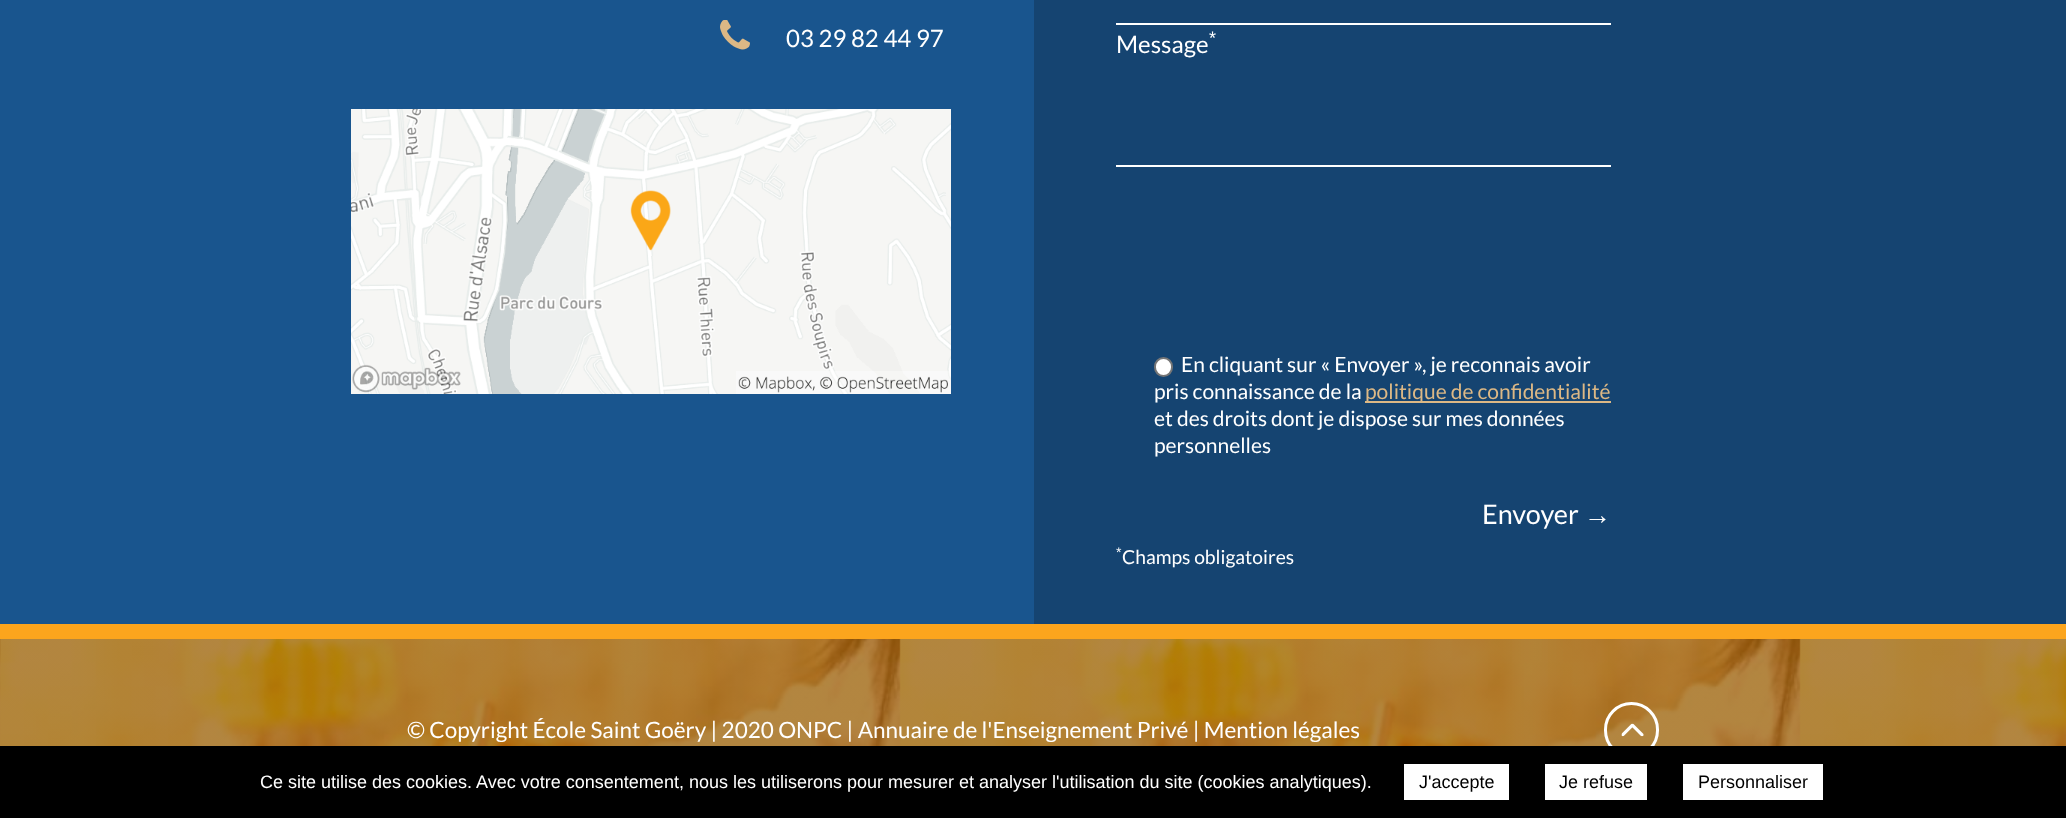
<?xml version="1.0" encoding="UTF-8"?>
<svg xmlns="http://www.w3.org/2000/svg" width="2066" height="818">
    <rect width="100%" height="100%" fill="#FFFFFF"/>
    <rect x="0" y="0" width="1034" height="624" fill="#19558E"/>
    <rect x="0" y="624" width="2066" height="15" fill="#FCA51D"/>
    <image x="720" y="20" width="30" height="30" href="img_01.png"/>
    <text x="786" y="47" font-family="Lato" font-size="24" fill="#FFFFFF">03 29 82 44 97</text>
    <image x="351" y="109" width="600" height="285" href="img_02.png"/>
    <image x="630" y="190" width="41" height="61" href="img_03.png"/>
    <rect x="1034" y="0" width="1032" height="624" fill="#154471"/>
    <rect x="1116" y="23" width="495" height="2" fill="#FFFFFF"/>
    <text x="1116" y="53" font-family="Lato" font-size="24" fill="#FFFFFF">Message</text>
    <text x="1209" y="44" font-family="Liberation Sans" font-size="18" fill="#FFFFFF">*</text>
    <rect x="1116" y="165" width="495" height="2" fill="#FFFFFF"/>
    <rect x="1155" y="358" width="17" height="18" rx="8.5" fill="#FFFFFF" stroke="#767676" stroke-width="2"/>
    <text x="1181" y="372" font-family="Lato" font-size="21" fill="#FFFFFF">En cliquant sur « Envoyer », je reconnais avoir</text>
    <text x="1154" y="399" font-family="Lato" font-size="21" fill="#FFFFFF">pris connaissance de la</text>
    <rect x="1365" y="401" width="246" height="2" fill="#DCB885"/>
    <text x="1365" y="399" font-family="Lato" font-size="21" fill="#DCB885">politique de confidentialité</text>
    <text font-family="Lato" font-size="21" fill="#FFFFFF">
        <tspan x="1154" y="426">et des droits dont je dispose sur mes données</tspan>
        <tspan x="1154" y="453">personnelles</tspan>
    </text>
    <text x="1482" y="524" font-family="Lato" font-size="27" fill="#FFFFFF">Envoyer</text>
    <text x="1584" y="524" font-family="Liberation Sans" font-size="27" fill="#FFFFFF">→</text>
    <text x="1116" y="557" font-family="Liberation Sans" font-size="14" fill="#FFFFFF">*</text>
    <text x="1122" y="564" font-family="Lato" font-size="19.25" fill="#FFFFFF">Champs obligatoires</text>
    <image x="0" y="639" width="2066" height="107" href="img_04.png"/>
    <text x="407" y="738" font-family="Lato" font-size="22.5" fill="#FFFFFF">© Copyright École Saint Goëry | 2020 ONPC | Annuaire de l'Enseignement Privé | Mention légales</text>
    <rect x="1605.5" y="703.5" width="52" height="53" rx="26" fill="none" stroke="#FFFFFF" stroke-width="3"/>
    <image x="1621" y="723" width="23" height="14" href="img_05.png"/>
    <rect x="0" y="746" width="2066" height="72" fill="#000000"/>
    <text x="260" y="788" font-family="Liberation Sans" font-size="18" fill="#FFFFFF">Ce site utilise des cookies. Avec votre consentement, nous les utiliserons pour mesurer et analyser l'utilisation du site (cookies analytiques).</text>
    <rect x="1404" y="764" width="105" height="36" fill="#FFFFFF"/>
    <text x="1419" y="788" font-family="Liberation Sans" font-size="18" fill="#000000">J'accepte</text>
    <rect x="1545" y="764" width="102" height="36" fill="#FFFFFF"/>
    <text x="1559" y="788" font-family="Liberation Sans" font-size="18" fill="#000000">Je refuse</text>
    <rect x="1683" y="764" width="140" height="36" fill="#FFFFFF"/>
    <text x="1698" y="788" font-family="Liberation Sans" font-size="18" fill="#000000">Personnaliser</text>
</svg>
